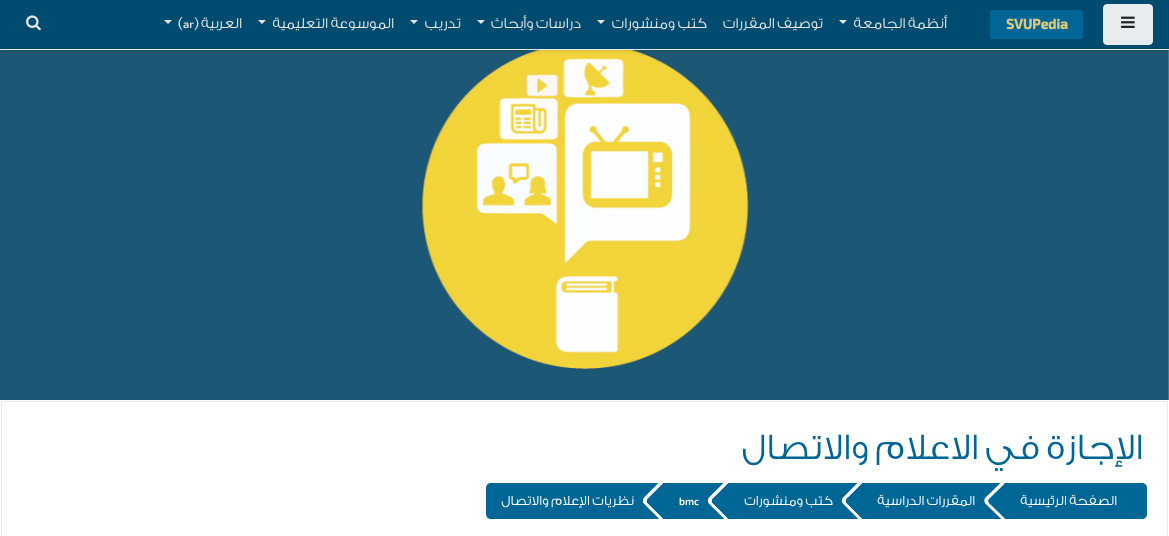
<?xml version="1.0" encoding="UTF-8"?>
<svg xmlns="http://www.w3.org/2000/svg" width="1169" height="536">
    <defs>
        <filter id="blur1" x="-50%" y="-200%" width="200%" height="500%"><feGaussianBlur stdDeviation="2"/></filter>
        <clipPath id="clip1"><rect x="486" y="483" width="661" height="36" rx="4"/></clipPath>
    </defs>
    <rect width="100%" height="100%" fill="#FFFFFF"/>
    <image x="0" y="50" width="1169" height="353" href="img_03.png"/>
    <rect x="0" y="2" width="1169" height="50" fill="#000000" fill-opacity="0.08" filter="url(#blur1)"/>
    <rect x="0" y="0" width="1169" height="49" fill="#004C71"/>
    <rect x="0" y="49" width="1169" height="1" fill="#E5E5E5"/>
    <rect x="1103.5" y="4.5" width="49" height="40" rx="3.5" fill="#E9ECEF" stroke="#E9ECEF"/>
    <image x="1121" y="16" width="14" height="12" href="img_01.png"/>
    <rect x="990" y="10" width="93" height="29" rx="3" fill="#006695"/>
    <text x="1006" y="29" font-family="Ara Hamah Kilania" font-size="19" font-weight="700" fill="#E1C878">SVUPedia</text>
    <text x="947" y="28" font-family="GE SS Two" font-size="15" font-weight="300" direction="rtl" fill="#E5E5E5">أنظمة الجامعة</text>
    <path d="M 839 20 H 847 L 843 24 Z" fill="#E5E5E5"/>
    <text x="823" y="28" font-family="GE SS Two" font-size="15" font-weight="300" direction="rtl" fill="#E5E5E5">توصيف المقررات</text>
    <text x="707" y="28" font-family="GE SS Two" font-size="15" font-weight="300" direction="rtl" fill="#E5E5E5">كتب ومنشورات</text>
    <path d="M 597 20 H 605 L 601 24 Z" fill="#E5E5E5"/>
    <text x="581" y="28" font-family="GE SS Two" font-size="15" font-weight="300" direction="rtl" fill="#E5E5E5">دراسات وأبحاث</text>
    <path d="M 477 20 H 485 L 481 24 Z" fill="#E5E5E5"/>
    <text x="461" y="28" font-family="GE SS Two" font-size="15" font-weight="300" direction="rtl" fill="#E5E5E5">تدريب</text>
    <path d="M 410 20 H 418 L 414 24 Z" fill="#E5E5E5"/>
    <text x="394" y="28" font-family="GE SS Two" font-size="15" font-weight="300" direction="rtl" fill="#E5E5E5">الموسوعة التعليمية</text>
    <path d="M 258 20 H 266 L 262 24 Z" fill="#E5E5E5"/>
    <text x="242" y="28" font-family="GE SS Two" font-size="15" font-weight="300" direction="rtl" fill="#E5E5E5">العربية</text>
    <text x="194" y="28" font-family="GE SS Two" font-size="15" font-weight="300" fill="#E5E5E5">)</text>
    <text x="183" y="28" font-family="Ara Hamah Kilania" font-size="15" fill="#E5E5E5">ar</text>
    <text x="178" y="28" font-family="GE SS Two" font-size="15" font-weight="300" fill="#E5E5E5">(</text>
    <path d="M 164 20 H 172 L 168 24 Z" fill="#E5E5E5"/>
    <image x="26" y="15" width="15" height="16" href="img_02.png"/>
    <rect x="0.5" y="400.5" width="1168" height="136" fill="none" stroke="#FFFFFF"/>
    <rect x="1" y="401" width="1167" height="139" rx="4" fill="#FFFFFF"/>
    <rect x="1.5" y="401.5" width="1166" height="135" fill="none" stroke="#E9ECEF"/>
    <text x="1143" y="459" font-family="GE SS Two" font-size="37.5" font-weight="300" direction="rtl" fill="#006695">الإجازة في الاعلام والاتصال</text>
    <g clip-path="url(#clip1)">
        <path d="M 1005 483 H 1142 C 1145 483 1147 485 1147 488 V 514 C 1147 517 1145 519 1142 519 H 1005 Z" fill="#006695"/>
    </g>
    <text x="1117" y="505" font-family="GE SS Two" font-size="14" font-weight="300" direction="rtl" fill="#FFFFFF">الصفحة الرئيسية</text>
    <rect x="664" y="483" width="341" height="36" fill="#006695"/>
    <path d="M 985.5 497.5 L 1000.5 483 H 1005 L 989 499 C 988 500 988 502 989 503 L 1005 518.5 L 1004.5 519 H 1001.5 L 985.5 503.5 C 984 502 984 499 985.5 497.5 Z" fill="#FFFFFF"/>
    <path d="M 985.5 498.5 L 1001.5 483 H 1003.5 L 1004.5 484 L 989 499 C 988 500 988 502 989 503 L 1004.5 518 L 1003.5 519 H 1001.5 L 985.5 503.5 C 984.5 502 984.5 500 985.5 498.5 Z" fill="#FFFFFF"/>
    <path d="M 989 499 L 1005.5 483 C 1015 493 1015 509 1005.5 519 L 989 503 C 988 502 988 500 989 499 Z" fill="#006695"/>
    <text x="975" y="505" font-family="GE SS Two" font-size="14" font-weight="300" direction="rtl" fill="#FFFFFF">المقررات الدراسية</text>
    <path d="M 843 497.5 L 857.5 483 H 862.5 L 846.5 499 C 845.5 500 845.5 502 846.5 503 L 862 518.5 L 861.5 519 H 858.5 L 843 503.5 C 841.5 502 841.5 499 843 497.5 Z" fill="#FFFFFF"/>
    <path d="M 843 498.5 L 858.5 483 H 860.5 L 861.5 484 L 846.5 499 C 845.5 500 845.5 502 846.5 503 L 861.5 518 L 860.5 519 H 858.5 L 843 503.5 C 841.5 502 841.5 500 843 498.5 Z" fill="#FFFFFF"/>
    <path d="M 846.5 499 L 862.5 483 C 872.5 493 872.5 509 862.5 519 L 846.5 503 C 845.5 502 845.5 500 846.5 499 Z" fill="#006695"/>
    <text x="833" y="505" font-family="GE SS Two" font-size="14" font-weight="300" direction="rtl" fill="#FFFFFF">كتب ومنشورات</text>
    <path d="M 709 497.5 L 723.5 483 H 728.5 L 712.5 499 C 711.5 500 711.5 502 712.5 503 L 728 518.5 L 727.5 519 H 724.5 L 709 503.5 C 707.5 502 707.5 499 709 497.5 Z" fill="#FFFFFF"/>
    <path d="M 709 498.5 L 724.5 483 H 726.5 L 727.5 484 L 712.5 499 C 711.5 500 711.5 502 712.5 503 L 727.5 518 L 726.5 519 H 724.5 L 709 503.5 C 707.5 502 707.5 500 709 498.5 Z" fill="#FFFFFF"/>
    <path d="M 712.5 499 L 728.5 483 C 738.5 493 738.5 509 728.5 519 L 712.5 503 C 711.5 502 711.5 500 712.5 499 Z" fill="#006695"/>
    <text x="679" y="505" font-family="Ara Hamah Kilania" font-size="14" fill="#FFFFFF">bmc</text>
    <g clip-path="url(#clip1)">
        <path d="M 491 483 H 664 V 519 H 491 C 488 519 486 517 486 514 V 488 C 486 485 488 483 491 483 Z" fill="#006695"/>
    </g>
    <path d="M 644 497.5 L 658.5 483 H 663.5 L 647.5 499 C 646.5 500 646.5 502 647.5 503 L 663 518.5 L 662.5 519 H 659.5 L 644 503.5 C 642.5 502 642.5 499 644 497.5 Z" fill="#FFFFFF"/>
    <path d="M 644 498.5 L 659.5 483 H 661.5 L 662.5 484 L 647.5 499 C 646.5 500 646.5 502 647.5 503 L 662.5 518 L 661.5 519 H 659.5 L 644 503.5 C 642.5 502 642.5 500 644 498.5 Z" fill="#FFFFFF"/>
    <path d="M 647.5 499 L 663.5 483 C 673.5 493 673.5 509 663.5 519 L 647.5 503 C 646.5 502 646.5 500 647.5 499 Z" fill="#006695"/>
    <text x="634" y="505" font-family="GE SS Two" font-size="14" font-weight="300" direction="rtl" fill="#FFFFFF">نظريات الإعلام والاتصال</text>
</svg>
